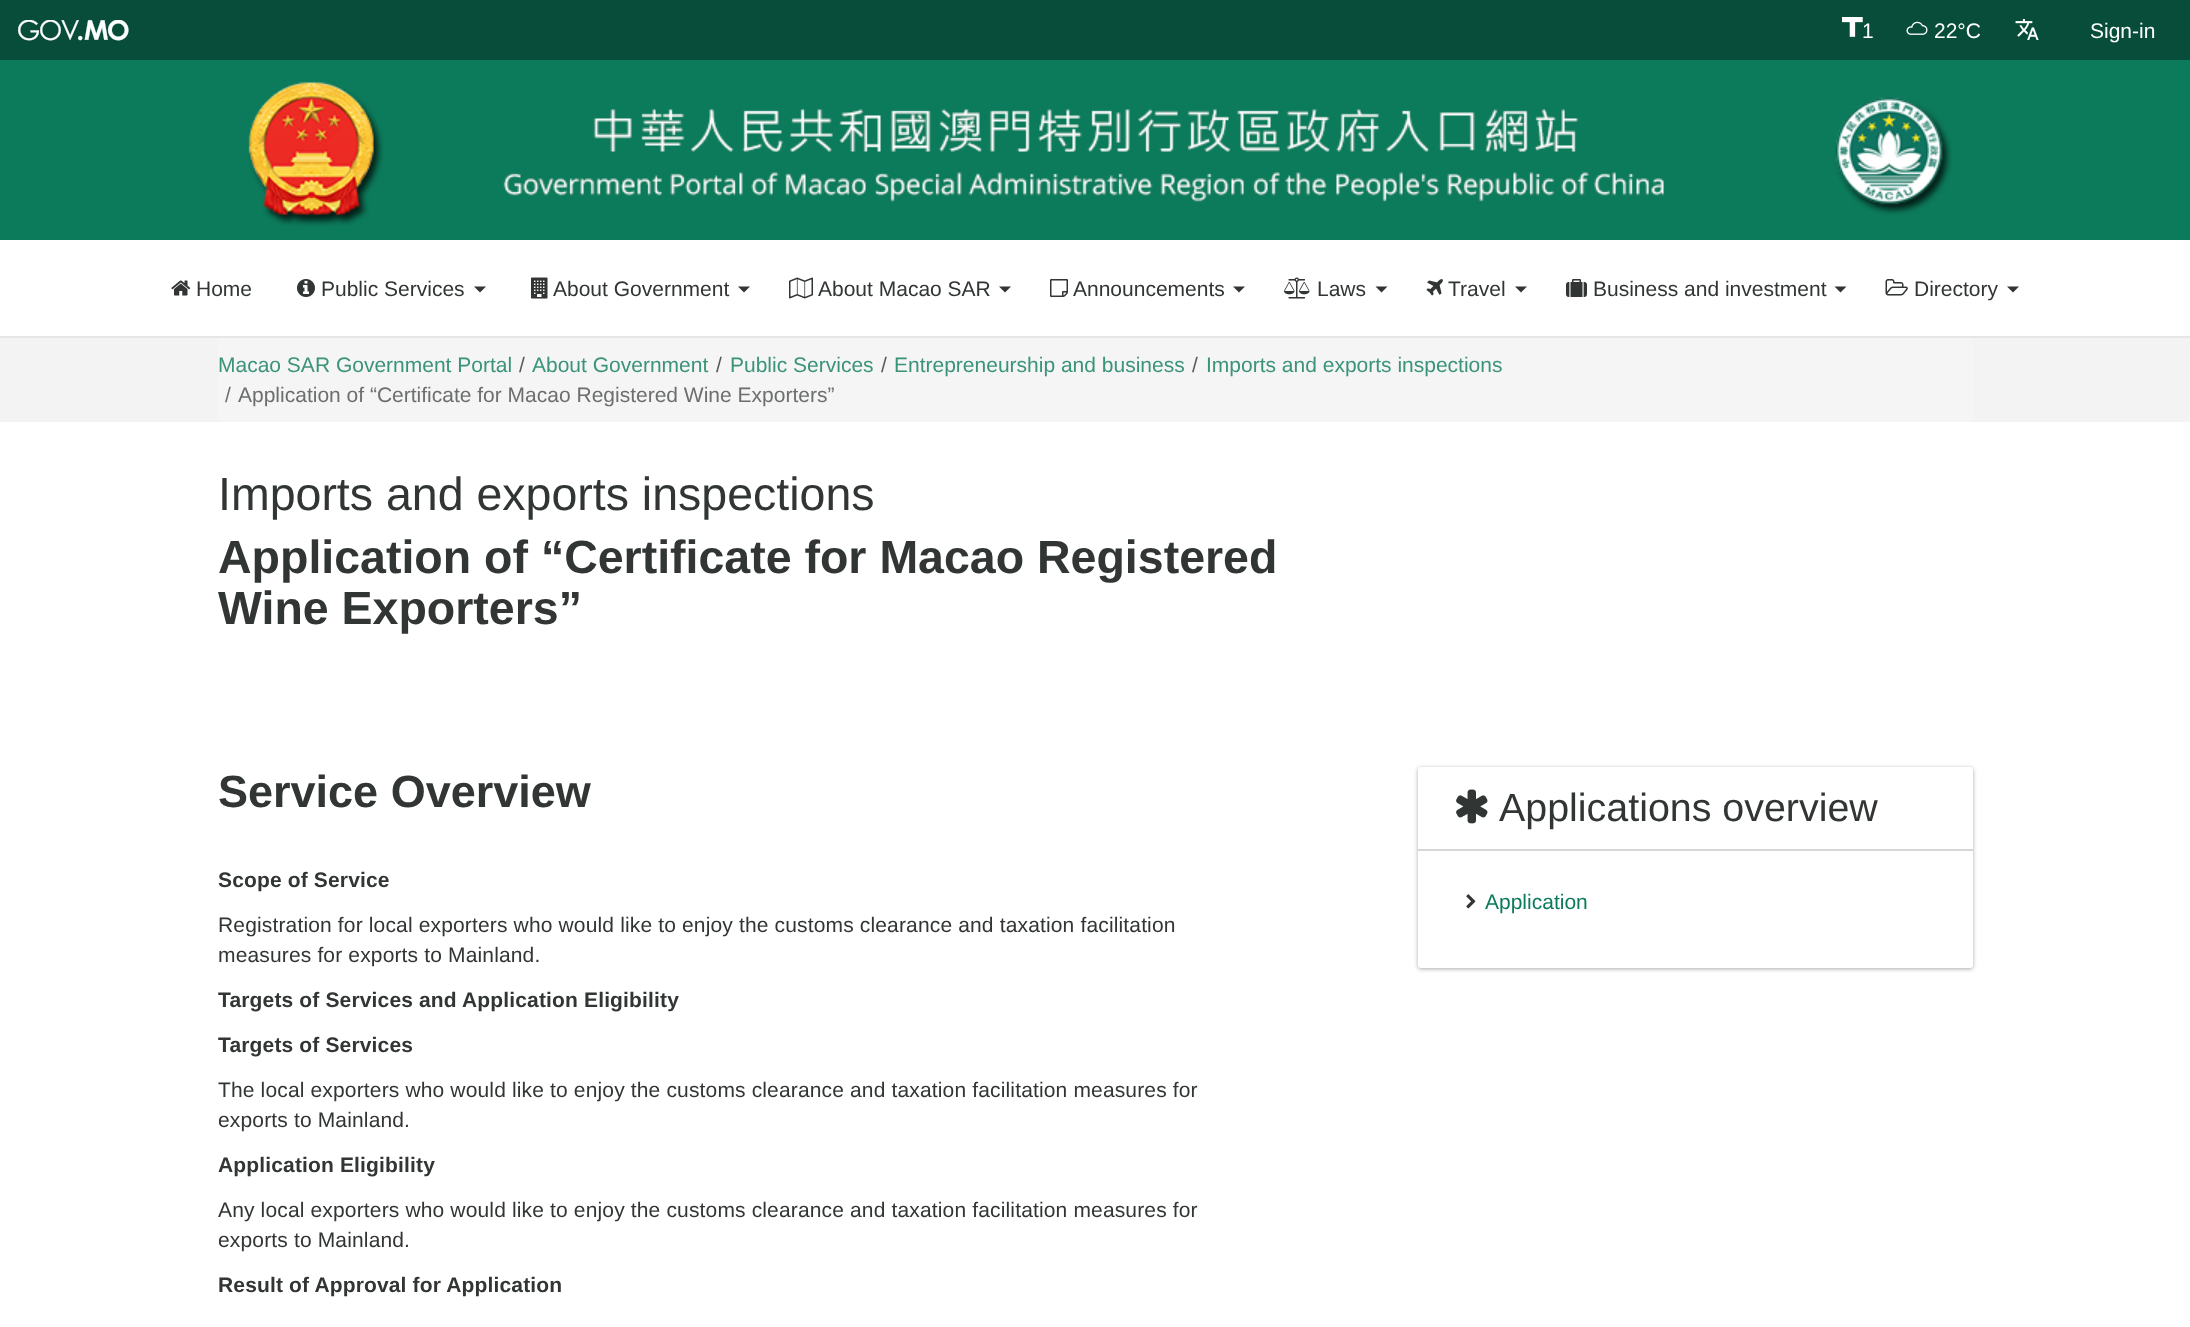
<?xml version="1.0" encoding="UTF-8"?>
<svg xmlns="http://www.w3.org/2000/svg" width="2190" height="1327">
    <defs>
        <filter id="blur1" x="-50%" y="-200%" width="200%" height="500%"><feGaussianBlur stdDeviation="2"/></filter>
    </defs>
    <rect width="100%" height="100%" fill="#FFFFFF"/>
    <rect x="0" y="0" width="2190" height="60" fill="#074D39"/>
    <image x="18" y="20" width="111" height="21" href="img_01.png"/>
    <image x="1842" y="17" width="21" height="20" href="img_02.png"/>
    <text x="1862" y="38" font-family="Liberation Sans" font-size="21" fill="#FFFFFF">1</text>
    <image x="1906" y="21" width="22" height="14" href="img_03.png"/>
    <text x="1934" y="38" font-family="Liberation Sans" font-size="21" fill="#FFFFFF">22°C</text>
    <image x="2015" y="19" width="24" height="21" href="img_04.png"/>
    <text x="2090" y="38" font-family="Liberation Sans" font-size="21" fill="#FFFFFF">Sign-in</text>
    <rect x="0" y="60" width="2190" height="180" fill="#0C7B5B"/>
    <image x="248" y="82" width="1704" height="144" href="img_05.png"/>
    <image x="171" y="280" width="20" height="16" href="img_06.png"/>
    <text x="196" y="296" font-family="Liberation Sans" font-size="21" fill="#313534">Home</text>
    <image x="297" y="279" width="18" height="18" href="img_07.png"/>
    <text x="321" y="296" font-family="Liberation Sans" font-size="21" fill="#313534">Public Services</text>
    <path d="M 474 286.5 H 486 L 480 292.5 Z" fill="#313534"/>
    <image x="531" y="277" width="17" height="22" href="img_08.png"/>
    <text x="553" y="296" font-family="Liberation Sans" font-size="21" fill="#313534">About Government</text>
    <path d="M 738 286.5 H 750 L 744 292.5 Z" fill="#313534"/>
    <image x="789" y="277" width="24" height="22" href="img_09.png"/>
    <text x="818" y="296" font-family="Liberation Sans" font-size="21" fill="#313534">About Macao SAR</text>
    <path d="M 999 286.5 H 1011 L 1005 292.5 Z" fill="#313534"/>
    <image x="1050" y="279" width="18" height="18" href="img_10.png"/>
    <text x="1073" y="296" font-family="Liberation Sans" font-size="21" fill="#313534">Announcements</text>
    <path d="M 1233 286.5 H 1245 L 1239 292.5 Z" fill="#313534"/>
    <image x="1284" y="277" width="26" height="22" href="img_11.png"/>
    <text x="1317" y="296" font-family="Liberation Sans" font-size="21" fill="#313534">Laws</text>
    <path d="M 1375.5 286.5 H 1387.5 L 1381.5 292.5 Z" fill="#313534"/>
    <image x="1426" y="279" width="17" height="17" href="img_12.png"/>
    <text x="1448" y="296" font-family="Liberation Sans" font-size="21" fill="#313534">Travel</text>
    <path d="M 1515 286.5 H 1527 L 1521 292.5 Z" fill="#313534"/>
    <image x="1566" y="279" width="21" height="18" href="img_13.png"/>
    <text x="1593" y="296" font-family="Liberation Sans" font-size="21" fill="#313534">Business and investment</text>
    <path d="M 1834.5 286.5 H 1846.5 L 1840.5 292.5 Z" fill="#313534"/>
    <image x="1885" y="279" width="23" height="17" href="img_14.png"/>
    <text x="1914" y="296" font-family="Liberation Sans" font-size="21" fill="#313534">Directory</text>
    <path d="M 2007 286.5 H 2019 L 2013 292.5 Z" fill="#313534"/>
    <rect x="0" y="336" width="2190" height="2" fill="#E5E6E6"/>
    <rect x="0" y="338" width="2190" height="84" fill="#F2F3F2"/>
    <rect x="218" y="338" width="1755" height="84" rx="6" fill="#F5F5F5"/>
    <text x="218" y="372" font-family="Liberation Sans" font-size="21" fill="#3B937A">Macao SAR Government Portal</text>
    <text x="519" y="372" font-family="Liberation Sans" font-size="21" fill="#585B5B">/</text>
    <text x="532" y="372" font-family="Liberation Sans" font-size="21" fill="#3B937A">About Government</text>
    <text x="716" y="372" font-family="Liberation Sans" font-size="21" fill="#585B5B">/</text>
    <text x="730" y="372" font-family="Liberation Sans" font-size="21" fill="#3B937A">Public Services</text>
    <text x="881" y="372" font-family="Liberation Sans" font-size="21" fill="#585B5B">/</text>
    <text x="894" y="372" font-family="Liberation Sans" font-size="21" fill="#3B937A">Entrepreneurship and business</text>
    <text x="1192" y="372" font-family="Liberation Sans" font-size="21" fill="#585B5B">/</text>
    <text x="1206" y="372" font-family="Liberation Sans" font-size="21" fill="#3B937A">Imports and exports inspections</text>
    <text x="225" y="402" font-family="Liberation Sans" font-size="21" fill="#6C6F6E">/</text>
    <text x="238" y="402" font-family="Liberation Sans" font-size="21" fill="#6C6F6E">Application of “Certificate for Macao Registered Wine Exporters”</text>
    <text x="218" y="510" font-family="Liberation Sans" font-size="46.5" fill="#313534">Imports and exports inspections</text>
    <text font-family="Liberation Sans" font-size="46.5" font-weight="700" fill="#313534">
        <tspan x="218" y="573">Application of “Certificate for Macao Registered</tspan>
        <tspan x="218" y="624">Wine Exporters”</tspan>
    </text>
    <text x="218" y="807" font-family="Liberation Sans" font-size="45" font-weight="700" fill="#313534">Service Overview</text>
    <text x="218" y="887" font-family="Liberation Sans" font-size="21" font-weight="700" letter-spacing="0.15" fill="#313534">Scope of Service</text>
    <text font-family="Liberation Sans" font-size="21" letter-spacing="0.15" fill="#313534">
        <tspan x="218" y="932">Registration for local exporters who would like to enjoy the customs clearance and taxation facilitation</tspan>
        <tspan x="218" y="962">measures for exports to Mainland.</tspan>
    </text>
    <text x="218" y="1007" font-family="Liberation Sans" font-size="21" font-weight="700" letter-spacing="0.15" fill="#313534">Targets of Services and Application Eligibility</text>
    <text x="218" y="1052" font-family="Liberation Sans" font-size="21" font-weight="700" letter-spacing="0.15" fill="#313534">Targets of Services</text>
    <text font-family="Liberation Sans" font-size="21" letter-spacing="0.15" fill="#313534">
        <tspan x="218" y="1097">The local exporters who would like to enjoy the customs clearance and taxation facilitation measures for</tspan>
        <tspan x="218" y="1127">exports to Mainland.</tspan>
    </text>
    <text x="218" y="1172" font-family="Liberation Sans" font-size="21" font-weight="700" letter-spacing="0.15" fill="#313534">Application Eligibility</text>
    <text font-family="Liberation Sans" font-size="21" letter-spacing="0.15" fill="#313534">
        <tspan x="218" y="1217">Any local exporters who would like to enjoy the customs clearance and taxation facilitation measures for</tspan>
        <tspan x="218" y="1247">exports to Mainland.</tspan>
    </text>
    <text x="218" y="1292" font-family="Liberation Sans" font-size="21" font-weight="700" letter-spacing="0.15" fill="#313534">Result of Approval for Application</text>
    <rect x="1418" y="768" width="555" height="201" rx="3" fill="#000000" fill-opacity="0.33" filter="url(#blur1)"/>
    <rect x="1418" y="767" width="555" height="201" rx="3" fill="#FFFFFF"/>
    <rect x="1418" y="849" width="555" height="2" fill="#D5D7D7"/>
    <image x="1456" y="789" width="32" height="35" href="img_15.png"/>
    <text x="1499" y="821" font-family="Liberation Sans" font-size="39.4" fill="#313534">Applications overview</text>
    <image x="1466" y="894" width="10" height="15" href="img_16.png"/>
    <text x="1485" y="909" font-family="Liberation Sans" font-size="21" fill="#0C7B5B">Application</text>
</svg>
